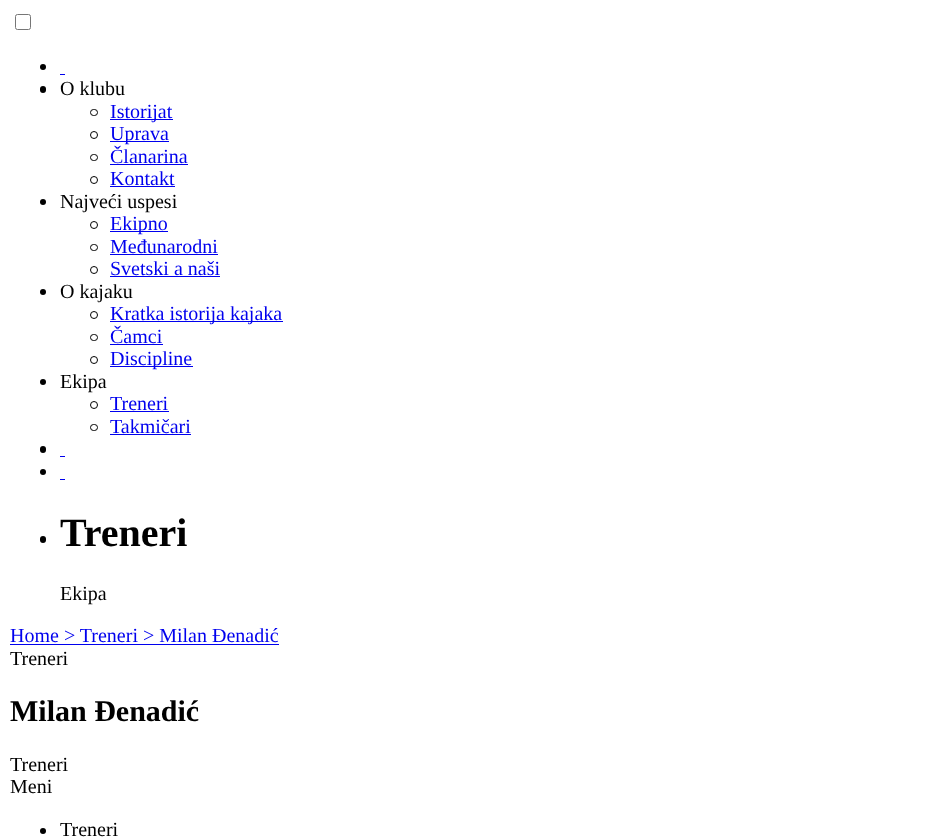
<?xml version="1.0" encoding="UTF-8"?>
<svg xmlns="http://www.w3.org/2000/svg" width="936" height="839">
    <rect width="100%" height="100%" fill="#FFFFFF"/>
    <rect x="15.5" y="14.5" width="15" height="15" rx="2" fill="none" stroke="#767676"/>
    <circle cx="43" cy="67" r="3" fill="#000000"/>
    <rect x="60" y="74" width="5" height="1" fill="#0000EE"/>
    <rect x="40" y="86" width="6" height="7" rx="3" fill="#000000"/>
    <text x="60" y="95" font-family="Liberation Serif" font-size="20" fill="#000000">O klubu</text>
    <rect x="90.5" y="109.5" width="7" height="6" rx="3" fill="none" stroke="#000000"/>
    <rect x="110" y="119" width="63" height="1" fill="#0000EE"/>
    <text x="110" y="118" font-family="Liberation Serif" font-size="20" fill="#0000EE">Istorijat</text>
    <circle cx="94" cy="135" r="3.5" fill="none" stroke="#000000"/>
    <rect x="110" y="141" width="59" height="1" fill="#0000EE"/>
    <text x="110" y="140" font-family="Liberation Serif" font-size="20" fill="#0000EE">Uprava</text>
    <rect x="90.5" y="154.5" width="7" height="6" rx="3" fill="none" stroke="#000000"/>
    <text x="110" y="163" font-family="Liberation Serif" font-size="20" fill="#0000EE">Članarina</text>
    <rect x="110" y="164" width="78" height="1" fill="#0000EE"/>
    <circle cx="94" cy="180" r="3.5" fill="none" stroke="#000000"/>
    <text x="110" y="185" font-family="Liberation Serif" font-size="20" fill="#0000EE">Kontakt</text>
    <rect x="110" y="186" width="65" height="1" fill="#0000EE"/>
    <circle cx="43" cy="202" r="3" fill="#000000"/>
    <text x="60" y="208" font-family="Liberation Serif" font-size="20" fill="#000000">Najveći uspesi</text>
    <circle cx="94" cy="225" r="3.5" fill="none" stroke="#000000"/>
    <rect x="110" y="231" width="58" height="1" fill="#0000EE"/>
    <text x="110" y="230" font-family="Liberation Serif" font-size="20" fill="#0000EE">Ekipno</text>
    <rect x="90.5" y="244.5" width="7" height="6" rx="3" fill="none" stroke="#000000"/>
    <text x="110" y="253" font-family="Liberation Serif" font-size="20" fill="#0000EE">Međunarodni</text>
    <rect x="110" y="254" width="108" height="1" fill="#0000EE"/>
    <circle cx="94" cy="270" r="3.5" fill="none" stroke="#000000"/>
    <text x="110" y="275" font-family="Liberation Serif" font-size="20" fill="#0000EE">Svetski a naši</text>
    <rect x="110" y="276" width="110" height="1" fill="#0000EE"/>
    <circle cx="43" cy="292" r="3" fill="#000000"/>
    <text x="60" y="298" font-family="Liberation Serif" font-size="20" fill="#000000">O kajaku</text>
    <circle cx="94" cy="315" r="3.5" fill="none" stroke="#000000"/>
    <rect x="110" y="321" width="173" height="1" fill="#0000EE"/>
    <text x="110" y="320" font-family="Liberation Serif" font-size="20" fill="#0000EE">Kratka istorija kajaka</text>
    <rect x="90.5" y="334.5" width="7" height="6" rx="3" fill="none" stroke="#000000"/>
    <text x="110" y="343" font-family="Liberation Serif" font-size="20" fill="#0000EE">Čamci</text>
    <rect x="110" y="344" width="53" height="1" fill="#0000EE"/>
    <circle cx="94" cy="360" r="3.5" fill="none" stroke="#000000"/>
    <rect x="110" y="366" width="83" height="1" fill="#0000EE"/>
    <text x="110" y="365" font-family="Liberation Serif" font-size="20" fill="#0000EE">Discipline</text>
    <circle cx="43" cy="382" r="3" fill="#000000"/>
    <text x="60" y="388" font-family="Liberation Serif" font-size="20" fill="#000000">Ekipa</text>
    <circle cx="94" cy="405" r="3.5" fill="none" stroke="#000000"/>
    <text x="110" y="410" font-family="Liberation Serif" font-size="20" fill="#0000EE">Treneri</text>
    <rect x="110" y="411" width="59" height="1" fill="#0000EE"/>
    <rect x="90.5" y="424.5" width="7" height="6" rx="3" fill="none" stroke="#000000"/>
    <text x="110" y="433" font-family="Liberation Serif" font-size="20" fill="#0000EE">Takmičari</text>
    <rect x="110" y="434" width="81" height="1" fill="#0000EE"/>
    <rect x="40" y="446" width="6" height="7" rx="3" fill="#000000"/>
    <rect x="60" y="456" width="5" height="1" fill="#0000EE"/>
    <circle cx="43" cy="472" r="3" fill="#000000"/>
    <rect x="60" y="479" width="5" height="1" fill="#0000EE"/>
    <rect x="40" y="536" width="6" height="7" rx="3" fill="#000000"/>
    <text x="60" y="546" font-family="Liberation Serif" font-size="40" font-weight="700" fill="#000000">Treneri</text>
    <text x="60" y="600" font-family="Liberation Serif" font-size="20" fill="#000000">Ekipa</text>
    <text x="10" y="642" font-family="Liberation Serif" font-size="20" fill="#0000EE">Home &gt; Treneri &gt; Milan Đenadić</text>
    <rect x="10" y="644" width="269" height="1" fill="#0000EE"/>
    <text x="10" y="665" font-family="Liberation Serif" font-size="20" fill="#000000">Treneri</text>
    <text x="10" y="721" font-family="Liberation Serif" font-size="30" font-weight="700" fill="#000000">Milan Đenadić</text>
    <text font-family="Liberation Serif" font-size="20" fill="#000000">
        <tspan x="10" y="771">Treneri</tspan>
        <tspan x="10" y="793">Meni</tspan>
    </text>
    <circle cx="43" cy="831" r="3" fill="#000000"/>
    <text x="60" y="836" font-family="Liberation Serif" font-size="20" fill="#000000">Treneri</text>
</svg>
